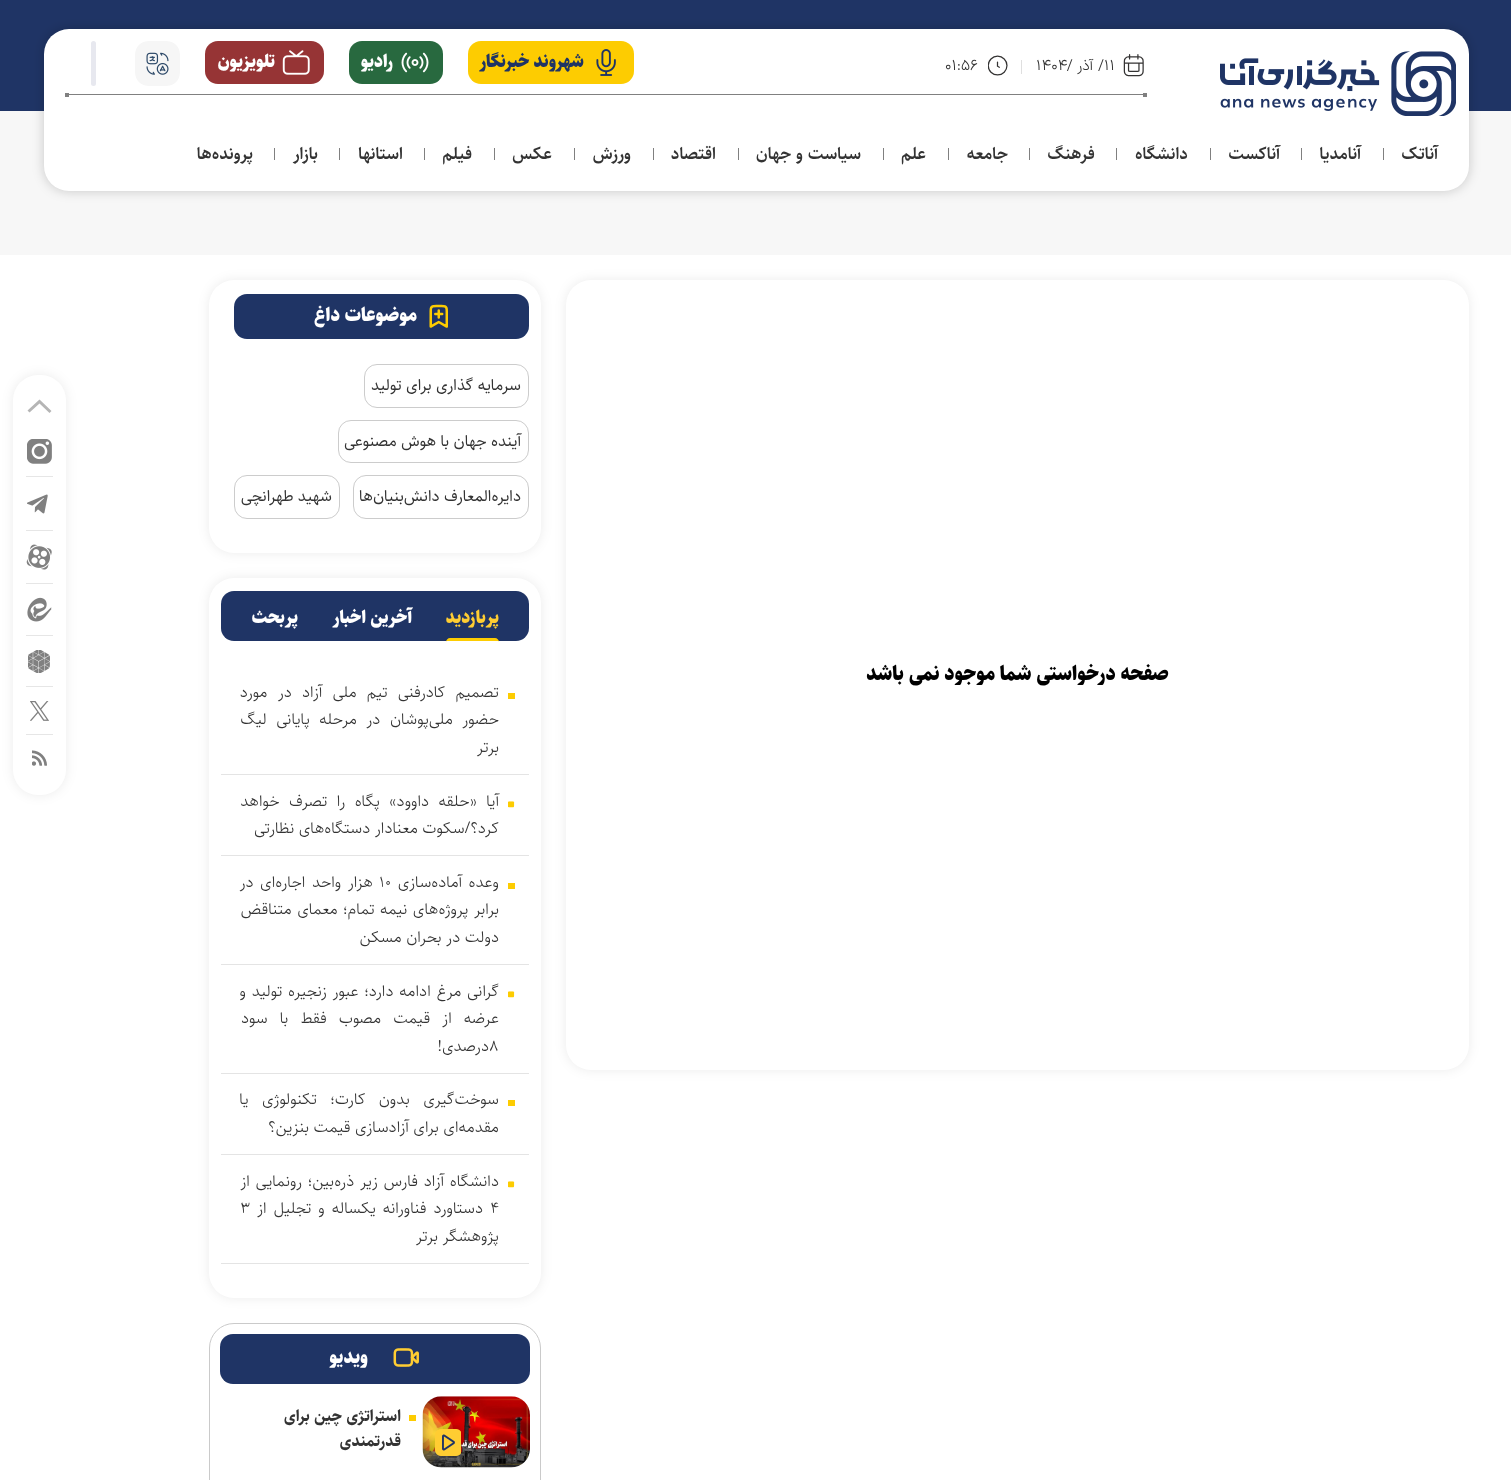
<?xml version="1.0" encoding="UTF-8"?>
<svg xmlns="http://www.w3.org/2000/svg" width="1511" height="1480">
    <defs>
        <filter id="blur1" x="-50%" y="-200%" width="200%" height="500%"><feGaussianBlur stdDeviation="6"/></filter>
    </defs>
    <rect width="100%" height="100%" fill="#FFFFFF"/>
    <rect x="0" y="0" width="1511" height="111" fill="#1F3465"/>
    <rect x="0" y="111" width="1511" height="144" fill="#F7F7F7"/>
    <rect x="44" y="29" width="1425" height="162" rx="25" fill="#000000" fill-opacity="0.2" filter="url(#blur1)"/>
    <rect x="44" y="29" width="1425" height="162" rx="25" fill="#FFFFFF"/>
    <image x="1220" y="51" width="236" height="65" href="img_01.png"/>
    <rect x="65" y="94" width="1081" height="1" fill="#808080"/>
    <image x="1123" y="54" width="21" height="23" href="img_02.png"/>
    <text x="1104" y="70" font-family="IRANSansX" font-size="15" font-weight="300" fill="#333333">۱۱</text>
    <text x="1104" y="70" font-family="IRANSansX" font-size="15" font-weight="300" direction="rtl" fill="#333333">/ آذر /</text>
    <text x="1036" y="70" font-family="IRANSansX" font-size="15" font-weight="300" fill="#333333">۱۴۰۴</text>
    <rect x="1021" y="60" width="1" height="14" fill="#DFDFDF"/>
    <image x="988" y="55" width="20" height="21" href="img_03.png"/>
    <text x="945" y="70" font-family="IRANSansX" font-size="15" font-weight="300" fill="#333333">۰۱:۵۶</text>
    <rect x="468" y="41" width="166" height="43" rx="13" fill="#FDCC01"/>
    <image x="596" y="49" width="20" height="27" href="img_04.png"/>
    <text x="584" y="67" font-family="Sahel" font-size="17.5" font-weight="900" direction="rtl" fill="#1F3465">شهروند خبرنگار</text>
    <rect x="349" y="41" width="94" height="43" rx="13" fill="#28693F"/>
    <image x="401" y="52" width="28" height="21" href="img_05.png"/>
    <text x="393" y="67" font-family="Sahel" font-size="17.5" font-weight="900" direction="rtl" fill="#FFFFFF">رادیو</text>
    <rect x="205" y="41" width="119" height="43" rx="13" fill="#963435"/>
    <image x="282" y="50" width="28" height="25" href="img_06.png"/>
    <text x="275" y="67" font-family="Sahel" font-size="17.5" font-weight="900" direction="rtl" fill="#FFFFFF">تلویزیون</text>
    <image x="135" y="41" width="45" height="45" href="img_07.png"/>
    <rect x="91" y="41" width="5" height="45" rx="2.5" fill="#E7E8EF"/>
    <rect x="1143" y="93" width="4" height="4" fill="#808080"/>
    <rect x="65" y="93" width="4" height="4" fill="#808080"/>
    <text x="1438" y="159" font-family="Sahel" font-size="17.5" font-weight="600" direction="rtl" fill="#333333">آناتک</text>
    <rect x="1383" y="148" width="1" height="12" fill="#808080"/>
    <text x="1361" y="159" font-family="Sahel" font-size="17.5" font-weight="600" direction="rtl" fill="#333333">آنامدیا</text>
    <rect x="1301" y="148" width="1" height="12" fill="#808080"/>
    <text x="1280" y="159" font-family="Sahel" font-size="17.5" font-weight="600" direction="rtl" fill="#333333">آناکست</text>
    <rect x="1210" y="148" width="1" height="12" fill="#808080"/>
    <text x="1188" y="159" font-family="Sahel" font-size="17.5" font-weight="600" direction="rtl" fill="#333333">دانشگاه</text>
    <rect x="1116" y="148" width="1" height="12" fill="#808080"/>
    <text x="1095" y="159" font-family="Sahel" font-size="17.5" font-weight="600" direction="rtl" fill="#333333">فرهنگ‌</text>
    <rect x="1029" y="148" width="1" height="12" fill="#808080"/>
    <text x="1008" y="159" font-family="Sahel" font-size="17.5" font-weight="600" direction="rtl" fill="#333333">جامعه</text>
    <rect x="948" y="148" width="1" height="12" fill="#808080"/>
    <text x="926" y="159" font-family="Sahel" font-size="17.5" font-weight="600" direction="rtl" fill="#333333">علم</text>
    <rect x="883" y="148" width="1" height="12" fill="#808080"/>
    <text x="861" y="159" font-family="Sahel" font-size="17.5" font-weight="600" direction="rtl" fill="#333333">سیاست و جهان</text>
    <rect x="738" y="148" width="1" height="12" fill="#808080"/>
    <text x="716" y="159" font-family="Sahel" font-size="17.5" font-weight="600" direction="rtl" fill="#333333">اقتصاد</text>
    <rect x="653" y="148" width="1" height="12" fill="#808080"/>
    <text x="631" y="159" font-family="Sahel" font-size="17.5" font-weight="600" direction="rtl" fill="#333333">ورزش</text>
    <rect x="574" y="148" width="1" height="12" fill="#808080"/>
    <text x="552" y="159" font-family="Sahel" font-size="17.5" font-weight="600" direction="rtl" fill="#333333">عکس</text>
    <rect x="494" y="148" width="1" height="12" fill="#808080"/>
    <text x="472" y="159" font-family="Sahel" font-size="17.5" font-weight="600" direction="rtl" fill="#333333">فیلم</text>
    <rect x="424" y="148" width="1" height="12" fill="#808080"/>
    <text x="403" y="159" font-family="Sahel" font-size="17.5" font-weight="600" direction="rtl" fill="#333333">استانها</text>
    <rect x="339" y="148" width="1" height="12" fill="#808080"/>
    <text x="318" y="159" font-family="Sahel" font-size="17.5" font-weight="600" direction="rtl" fill="#333333">بازار</text>
    <rect x="274" y="148" width="1" height="12" fill="#808080"/>
    <text x="253" y="159" font-family="Sahel" font-size="17.5" font-weight="600" direction="rtl" fill="#333333">پرونده‌ها</text>
    <rect x="566" y="280" width="903" height="790" rx="25" fill="#000000" fill-opacity="0.08" filter="url(#blur1)"/>
    <rect x="566" y="280" width="903" height="790" rx="25" fill="#FFFFFF"/>
    <text x="1169" y="680" font-family="Sahel" font-size="20" font-weight="900" direction="rtl" fill="#000000">صفحه درخواستی شما موجود نمی باشد</text>
    <rect x="209" y="280" width="332" height="273" rx="25" fill="#000000" fill-opacity="0.08" filter="url(#blur1)"/>
    <rect x="209" y="280" width="332" height="273" rx="25" fill="#FFFFFF"/>
    <rect x="234" y="294" width="295" height="45" rx="13" fill="#1F3465"/>
    <image x="429" y="304" width="19" height="24" href="img_08.png"/>
    <text x="417" y="321" font-family="Sahel" font-size="18.75" font-weight="900" direction="rtl" fill="#FFFFFF">موضوعات داغ</text>
    <rect x="364.5" y="364.5" width="164" height="43" rx="12.5" fill="none" stroke="#CCCCCC"/>
    <text x="521" y="390" font-family="Sahel" font-size="16.25" direction="rtl" fill="#333333">سرمایه گذاری برای تولید</text>
    <rect x="338.5" y="420.5" width="190" height="42" rx="12.5" fill="none" stroke="#CCCCCC"/>
    <text x="521" y="446" font-family="Sahel" font-size="16.25" direction="rtl" fill="#333333">آینده جهان با هوش مصنوعی</text>
    <rect x="353.5" y="475.5" width="175" height="43" rx="12.5" fill="none" stroke="#CCCCCC"/>
    <text x="521" y="501" font-family="Sahel" font-size="16.25" direction="rtl" fill="#333333">دایره‌المعارف دانش‌بنیان‌ها</text>
    <rect x="234.5" y="475.5" width="105" height="43" rx="12.5" fill="none" stroke="#CCCCCC"/>
    <text x="332" y="501" font-family="Sahel" font-size="16.25" direction="rtl" fill="#333333">شهید طهرانچی</text>
    <rect x="209" y="578" width="332" height="720" rx="25" fill="#000000" fill-opacity="0.08" filter="url(#blur1)"/>
    <rect x="209" y="578" width="332" height="720" rx="25" fill="#FFFFFF"/>
    <rect x="221" y="591" width="308" height="50" rx="13" fill="#1F3465"/>
    <text x="499" y="623" font-family="Sahel" font-size="17.5" font-weight="900" direction="rtl" fill="#FFCD32">پربازدید</text>
    <path d="M 450 638 H 495 C 497 638 499 640 499 642 V 641 H 446 V 642 C 446 640 448 638 450 638 Z" fill="#FDCC01"/>
    <text x="412" y="623" font-family="Sahel" font-size="17.5" font-weight="900" direction="rtl" fill="#FFFFFF">آخرین اخبار</text>
    <text x="298" y="623" font-family="Sahel" font-size="17.5" font-weight="900" direction="rtl" fill="#FFFFFF">پربحث</text>
    <rect x="508" y="693" width="7" height="6" fill="#FDCC01"/>
    <text font-family="Sahel" font-size="16.25" font-weight="300" direction="rtl" fill="#333333">
        <tspan x="499" y="697" word-spacing="5.75">تصمیم کادرفنی تیم ملی آزاد در مورد</tspan>
        <tspan x="499" y="724" word-spacing="5">حضور ملی‌پوشان در مرحله پایانی لیگ</tspan>
        <tspan x="499" y="752">برتر</tspan>
    </text>
    <rect x="221" y="774" width="308" height="1" fill="#E4E4E4"/>
    <image x="508" y="801" width="7" height="7" href="img_09.png"/>
    <text font-family="Sahel" font-size="16.25" font-weight="300" direction="rtl" fill="#333333">
        <tspan x="499" y="806" word-spacing="5">آیا «حلقه داوود» پگاه را تصرف خواهد</tspan>
        <tspan x="499" y="833">کرد؟/سکوت معنادار دستگاه‌های نظارتی</tspan>
    </text>
    <rect x="221" y="855" width="308" height="1" fill="#E4E4E4"/>
    <rect x="508" y="883" width="7" height="6" fill="#FDCC01"/>
    <text x="499" y="887" word-spacing="2" font-family="Sahel" font-size="16.25" font-weight="300" direction="rtl" fill="#333333">وعده آماده‌سازی</text>
    <text x="379" y="887" font-family="Sahel" font-size="16.25" font-weight="300" fill="#333333">۱۰</text>
    <text x="373" y="887" word-spacing="2" font-family="Sahel" font-size="16.25" font-weight="300" direction="rtl" fill="#333333">هزار واحد اجاره‌ای در</text>
    <text font-family="Sahel" font-size="16.25" font-weight="300" direction="rtl" fill="#333333">
        <tspan x="499" y="914" word-spacing="1">برابر پروژه‌های نیمه تمام؛ معمای متناقض</tspan>
        <tspan x="499" y="942">دولت در بحران مسکن</tspan>
    </text>
    <rect x="221" y="964" width="308" height="1" fill="#E4E4E4"/>
    <image x="508" y="991" width="7" height="7" href="img_09.png"/>
    <text font-family="Sahel" font-size="16.25" font-weight="300" direction="rtl" fill="#333333">
        <tspan x="499" y="996" word-spacing="1.25">گرانی مرغ ادامه دارد؛ عبور زنجیره تولید و</tspan>
        <tspan x="499" y="1023" word-spacing="7.5">عرضه از قیمت مصوب فقط با سود</tspan>
    </text>
    <text x="489" y="1051" font-family="Sahel" font-size="16.25" font-weight="300" fill="#333333">۸</text>
    <text x="489" y="1051" font-family="Sahel" font-size="16.25" font-weight="300" direction="rtl" fill="#333333">درصدی!</text>
    <rect x="221" y="1073" width="308" height="1" fill="#E4E4E4"/>
    <rect x="508" y="1100" width="7" height="6" fill="#FDCC01"/>
    <text font-family="Sahel" font-size="16.25" font-weight="300" direction="rtl" fill="#333333">
        <tspan x="499" y="1104" word-spacing="9">سوخت‌گیری بدون کارت؛ تکنولوژی یا</tspan>
        <tspan x="499" y="1132">مقدمه‌ای برای آزادسازی قیمت بنزین؟</tspan>
    </text>
    <rect x="221" y="1154" width="308" height="1" fill="#E4E4E4"/>
    <image x="508" y="1181" width="7" height="7" href="img_09.png"/>
    <text x="499" y="1186" word-spacing="1.25" font-family="Sahel" font-size="16.25" font-weight="300" direction="rtl" fill="#333333">دانشگاه آزاد فارس زیر ذره‌بین؛ رونمایی از</text>
    <text x="490" y="1213" font-family="Sahel" font-size="16.25" font-weight="300" fill="#333333">۴</text>
    <text x="483" y="1213" word-spacing="2.5" font-family="Sahel" font-size="16.25" font-weight="300" direction="rtl" fill="#333333">دستاورد فناورانه یکساله و تجلیل از</text>
    <text x="240" y="1213" font-family="Sahel" font-size="16.25" font-weight="300" fill="#333333">۳</text>
    <text x="499" y="1241" font-family="Sahel" font-size="16.25" font-weight="300" direction="rtl" fill="#333333">پژوهشگر برتر</text>
    <rect x="221" y="1263" width="308" height="1" fill="#E4E4E4"/>
    <rect x="209.5" y="1323.5" width="331" height="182" rx="24.5" fill="none" stroke="#CACACA"/>
    <rect x="220" y="1334" width="310" height="50" rx="13" fill="#1F3465"/>
    <image x="393" y="1348" width="26" height="19" href="img_10.png"/>
    <text x="368" y="1363" font-family="Sahel" font-size="18.75" font-weight="900" direction="rtl" fill="#FFFFFF">ویدیو</text>
    <image x="422" y="1396" width="108" height="72" href="img_11.png"/>
    <image x="435" y="1429" width="26" height="27" href="img_12.png"/>
    <rect x="409" y="1415" width="7" height="6" fill="#FDCC01"/>
    <text font-family="Sahel" font-size="16.25" font-weight="700" direction="rtl" fill="#333333">
        <tspan x="401" y="1421">استراتژی چین برای</tspan>
        <tspan x="401" y="1446">قدرتمندی</tspan>
    </text>
    <rect x="13" y="375" width="53" height="420" rx="25" fill="#000000" fill-opacity="0.08" filter="url(#blur1)"/>
    <rect x="13" y="375" width="53" height="420" rx="25" fill="#FFFFFF"/>
    <path d="M 39.5 403.5 L 29.5 412.5 L 27.5 410.5 L 39.5 399.5 L 51.5 411 L 49.5 413 Z" fill="#B5B5B5"/>
    <rect x="26" y="476" width="27" height="1" fill="#E6E6E6"/>
    <image x="27" y="439" width="25" height="25" href="img_13.png"/>
    <rect x="26" y="530" width="27" height="1" fill="#E6E6E6"/>
    <image x="27" y="494" width="21" height="20" href="img_14.png"/>
    <rect x="26" y="583" width="27" height="1" fill="#E6E6E6"/>
    <image x="26" y="544" width="26" height="26" href="img_15.png"/>
    <rect x="26" y="635" width="27" height="1" fill="#E6E6E6"/>
    <image x="27" y="597" width="25" height="25" href="img_16.png"/>
    <rect x="26" y="686" width="27" height="1" fill="#E6E6E6"/>
    <image x="28" y="650" width="22" height="23" href="img_17.png"/>
    <rect x="26" y="734" width="27" height="1" fill="#E6E6E6"/>
    <image x="30" y="701" width="19" height="20" href="img_18.png"/>
    <image x="32" y="750" width="15" height="16" href="img_19.png"/>
</svg>
